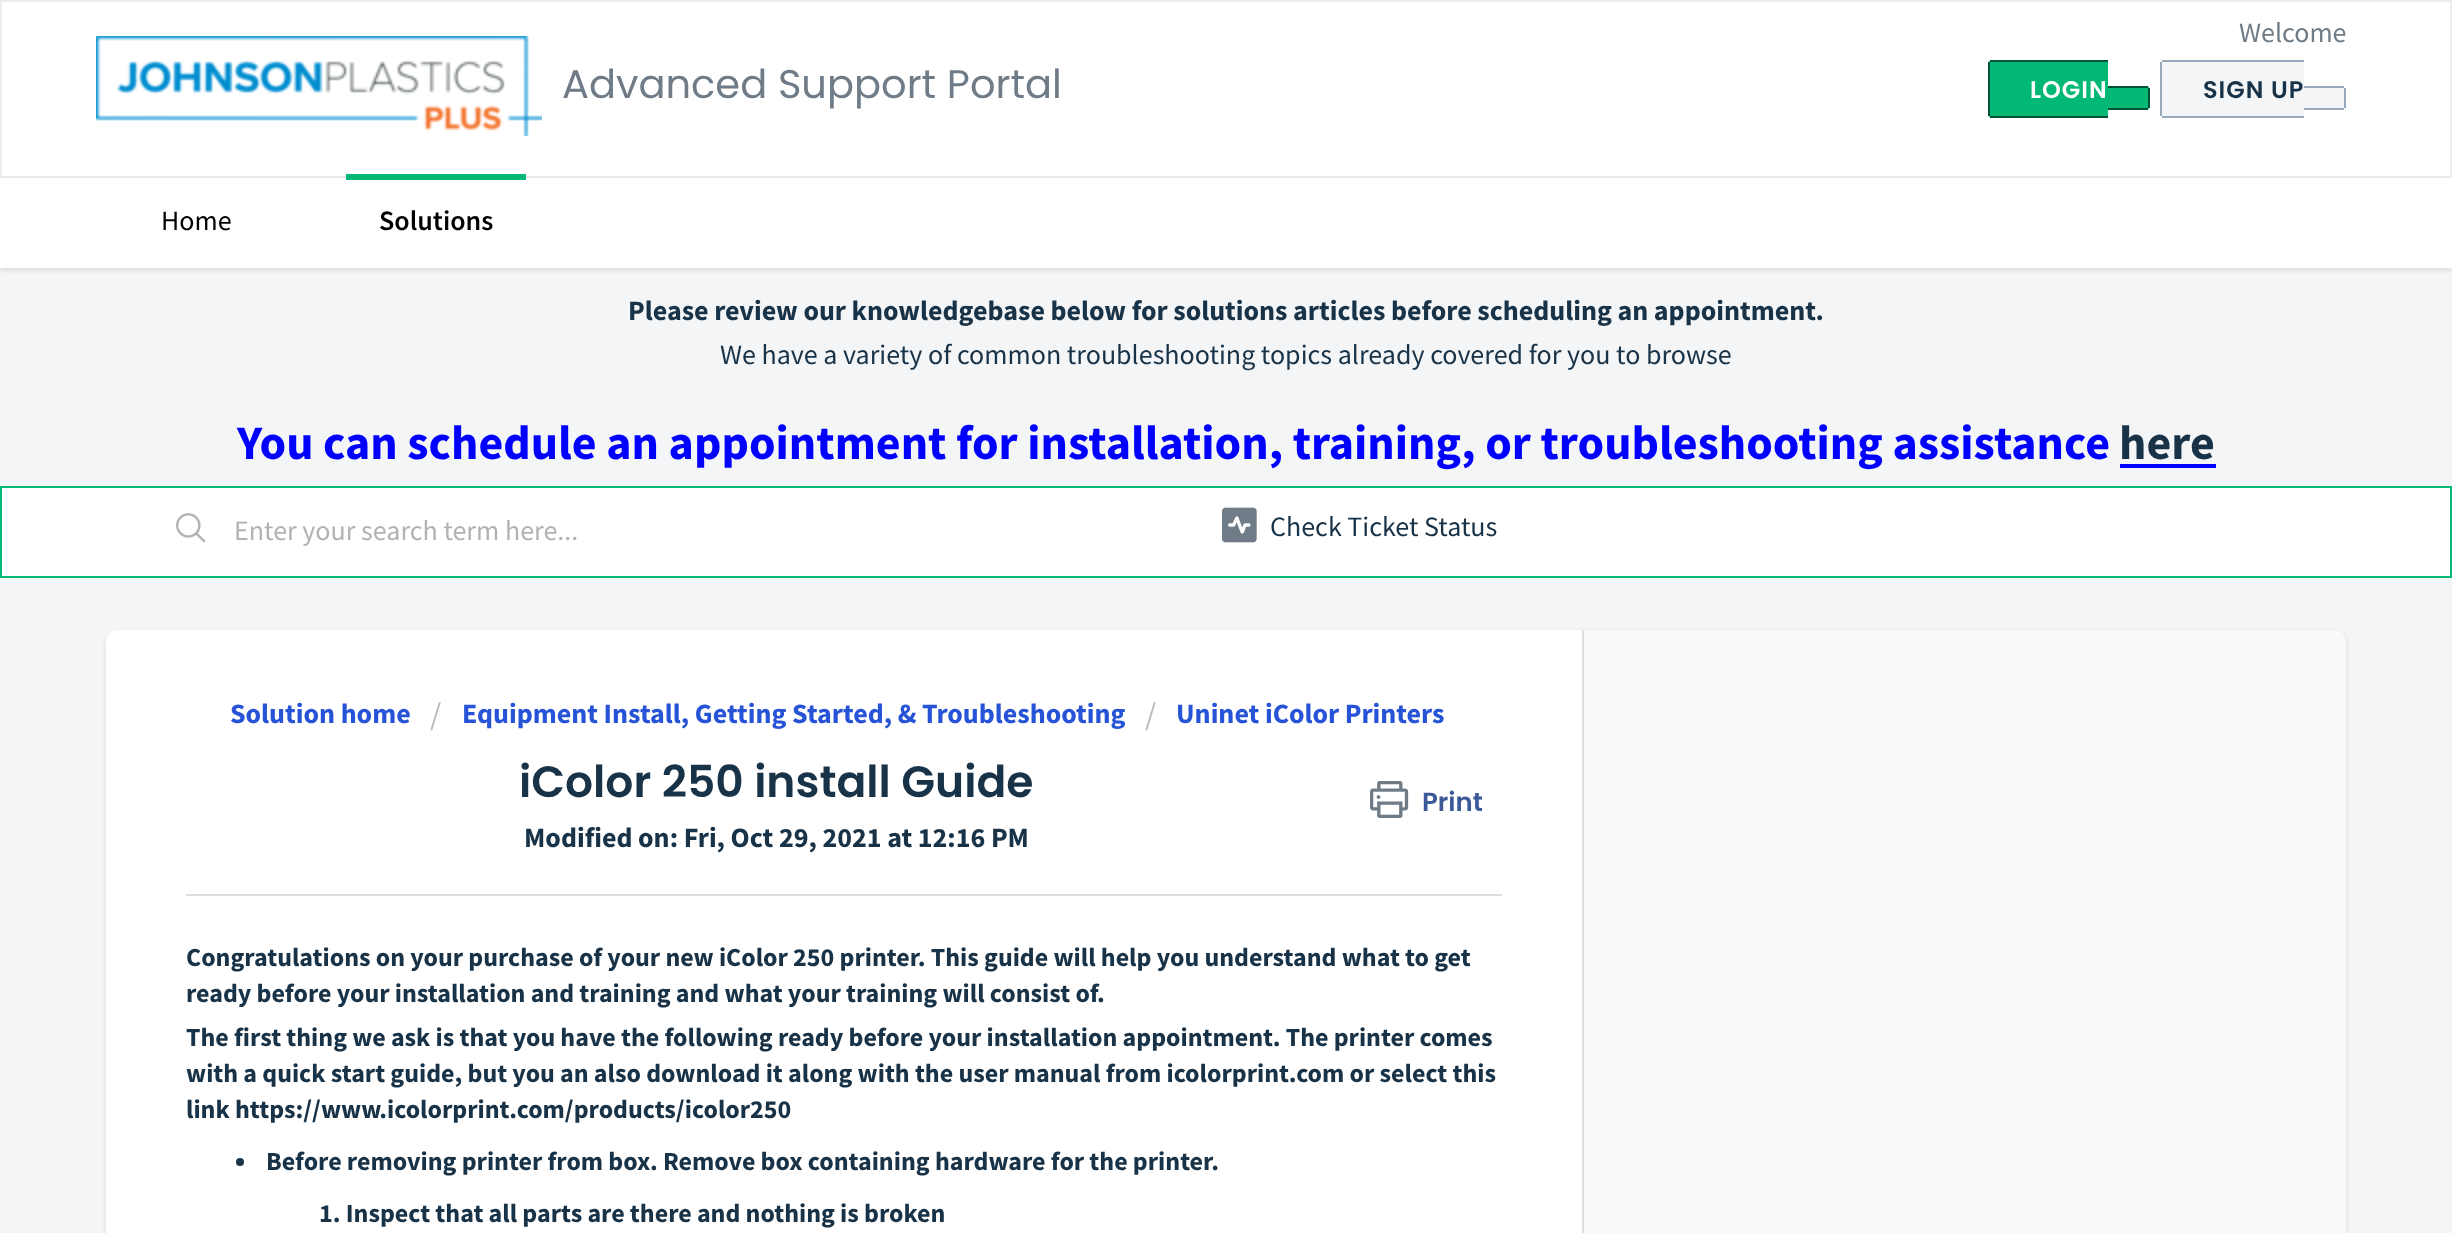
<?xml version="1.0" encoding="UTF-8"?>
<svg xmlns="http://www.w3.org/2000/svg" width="2452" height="1233">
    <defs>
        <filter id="blur1" x="-50%" y="-200%" width="200%" height="500%"><feGaussianBlur stdDeviation="2"/></filter>
    </defs>
    <rect width="100%" height="100%" fill="#F3F5F7"/>
    <rect x="1" y="1" width="2450" height="176" fill="#FFFFFF" stroke="#EBEEF0" stroke-width="2"/>
    <image x="96" y="36" width="446" height="100" href="img_01.png"/>
    <text x="562" y="98" font-family="Poppins" font-size="40" fill="#6F7C87">Advanced Support Portal</text>
    <text x="2239" y="42" font-family="Source Sans Pro" font-size="28" fill="#6F7C87">Welcome</text>
    <path d="M 1992 60 H 2108 V 118 H 1992 C 1990 118 1988 116 1988 114 V 64 C 1988 62 1990 60 1992 60 Z" fill="#02B875"/>
    <text x="2030" y="98" font-family="Poppins" font-size="24" font-weight="600" letter-spacing="1" fill="#FFFFFF">LOGIN</text>
    <rect x="1990" y="60" width="118" height="2" fill="#015335"/>
    <rect x="1990" y="116" width="118" height="2" fill="#015335"/>
    <rect x="1988" y="62" width="2" height="54" fill="#015335"/>
    <path d="M 2108 86 H 2146 C 2148 86 2150 88 2150 90 V 106 C 2150 108 2148 110 2146 110 H 2108 Z" fill="#02B875"/>
    <rect x="2108" y="86" width="40" height="2" fill="#015335"/>
    <rect x="2148" y="88" width="2" height="20" fill="#015335"/>
    <rect x="2108" y="108" width="40" height="2" fill="#015335"/>
    <path d="M 2164 60 H 2304 V 118 H 2164 C 2162 118 2160 116 2160 114 V 64 C 2160 62 2162 60 2164 60 Z" fill="#F3F5F7"/>
    <text x="2203" y="98" font-family="Poppins" font-size="24" font-weight="600" letter-spacing="1" fill="#183247">SIGN UP</text>
    <rect x="2162" y="60" width="142" height="2" fill="#97A9BA"/>
    <rect x="2162" y="116" width="142" height="2" fill="#97A9BA"/>
    <rect x="2160" y="62" width="2" height="54" fill="#97A9BA"/>
    <path d="M 2304 86 H 2342 C 2344 86 2346 88 2346 90 V 106 C 2346 108 2344 110 2342 110 H 2304 Z" fill="#F3F5F7"/>
    <rect x="2304" y="86" width="40" height="2" fill="#97A9BA"/>
    <rect x="2344" y="88" width="2" height="20" fill="#97A9BA"/>
    <rect x="2304" y="108" width="40" height="2" fill="#97A9BA"/>
    <rect x="0" y="180" width="2452" height="90" fill="#3F3F44" fill-opacity="0.15" filter="url(#blur1)"/>
    <rect x="0" y="178" width="2452" height="90" fill="#FFFFFF"/>
    <text x="161" y="230" font-family="Source Sans Pro" font-size="28" fill="#000000">Home</text>
    <rect x="346" y="174" width="180" height="6" fill="#02B875"/>
    <text x="379" y="230" font-family="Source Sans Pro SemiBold" font-size="28" font-weight="600" fill="#000000">Solutions</text>
    <text x="628" y="320" font-family="Source Sans Pro" font-size="28" font-weight="700" fill="#183247">Please review our knowledgebase below for solutions articles before scheduling an appointment.</text>
    <text x="720" y="364" font-family="Source Sans Pro" font-size="28" fill="#183247">We have a variety of common troubleshooting topics already covered for you to browse</text>
    <text x="237" y="459" font-family="Source Sans Pro" font-size="48" font-weight="700" fill="#0000FF">You can schedule an appointment for installation, training, or troubleshooting assistance</text>
    <text x="2119" y="459" font-family="Source Sans Pro" font-size="48" font-weight="700" fill="#183247">here</text>
    <rect x="2120" y="464" width="96" height="4" fill="#0000FF"/>
    <rect x="1" y="487" width="2450" height="90" fill="#FFFFFF" stroke="#02B875" stroke-width="2"/>
    <image x="176" y="513" width="30" height="30" href="img_02.png"/>
    <text x="234" y="540" font-family="Source Sans Pro" font-size="28" fill="#B2B2B2">Enter your search term here...</text>
    <image x="1222" y="507" width="35" height="36" href="img_03.png"/>
    <text x="1270" y="536" font-family="Source Sans Pro" font-size="28" fill="#183247">Check Ticket Status</text>
    <rect x="106" y="632" width="2240" height="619" rx="12" fill="#3F3F44" fill-opacity="0.15" filter="url(#blur1)"/>
    <rect x="106" y="630" width="2240" height="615" rx="12" fill="#F8F9FA"/>
    <path d="M 1584 630 H 2334 C 2340.5 630 2346 635.5 2346 642 V 658 C 2346 664.5 2340.5 670 2334 670 H 1584 Z" fill="#F8F9FA"/>
    <path d="M 118 630 H 1584 V 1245 H 118 C 111.5 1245 106 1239.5 106 1233 V 642 C 106 635.5 111.5 630 118 630 Z" fill="#FFFFFF"/>
    <rect x="1582" y="630" width="2" height="603" fill="#DADFE3"/>
    <text x="230" y="723" font-family="Source Sans Pro" font-size="28" font-weight="700" fill="#2753D7">Solution home</text>
    <text x="430" y="725" font-family="Source Sans Pro" font-size="32" fill="#BBBBBB">/</text>
    <text x="462" y="723" font-family="Source Sans Pro" font-size="28" font-weight="700" fill="#2753D7">Equipment Install, Getting Started, &amp; Troubleshooting</text>
    <text x="1145" y="725" font-family="Source Sans Pro" font-size="32" fill="#BBBBBB">/</text>
    <text x="1176" y="723" font-family="Source Sans Pro" font-size="28" font-weight="700" fill="#2753D7">Uninet iColor Printers</text>
    <text x="519" y="797" font-family="Poppins" font-size="44" font-weight="600" fill="#183247">iColor 250 install Guide</text>
    <image x="1370" y="781" width="39" height="37" href="img_04.png"/>
    <text x="1422" y="811" font-family="Poppins" font-size="26" font-weight="600" fill="#3B5998">Print</text>
    <text x="524" y="847" font-family="Source Sans Pro" font-size="28" font-weight="700" fill="#183247">Modified on: Fri, Oct 29, 2021 at 12:16 PM</text>
    <rect x="186" y="894" width="1316" height="2" fill="#DCDCDC"/>
    <text font-family="Source Sans Pro" font-size="26" font-weight="700" fill="#183247">
        <tspan x="186" y="966">Congratulations on your purchase of your new iColor 250 printer. This guide will help you understand what to get</tspan>
        <tspan x="186" y="1002">ready before your installation and training and what your training will consist of.</tspan>
        <tspan x="186" y="1046">The first thing we ask is that you have the following ready before your installation appointment. The printer comes</tspan>
        <tspan x="186" y="1082">with a quick start guide, but you an also download it along with the user manual from icolorprint.com or select this</tspan>
        <tspan x="186" y="1118">link https://www.icolorprint.com/products/icolor250</tspan>
    </text>
    <circle cx="240" cy="1162" r="4" fill="#183247"/>
    <text x="266" y="1170" font-family="Source Sans Pro" font-size="26" font-weight="700" fill="#183247">Before removing printer from box. Remove box containing hardware for the printer.</text>
    <text x="319" y="1222" font-family="Source Sans Pro" font-size="26" font-weight="700" fill="#183247">1. Inspect that all parts are there and nothing is broken</text>
</svg>
